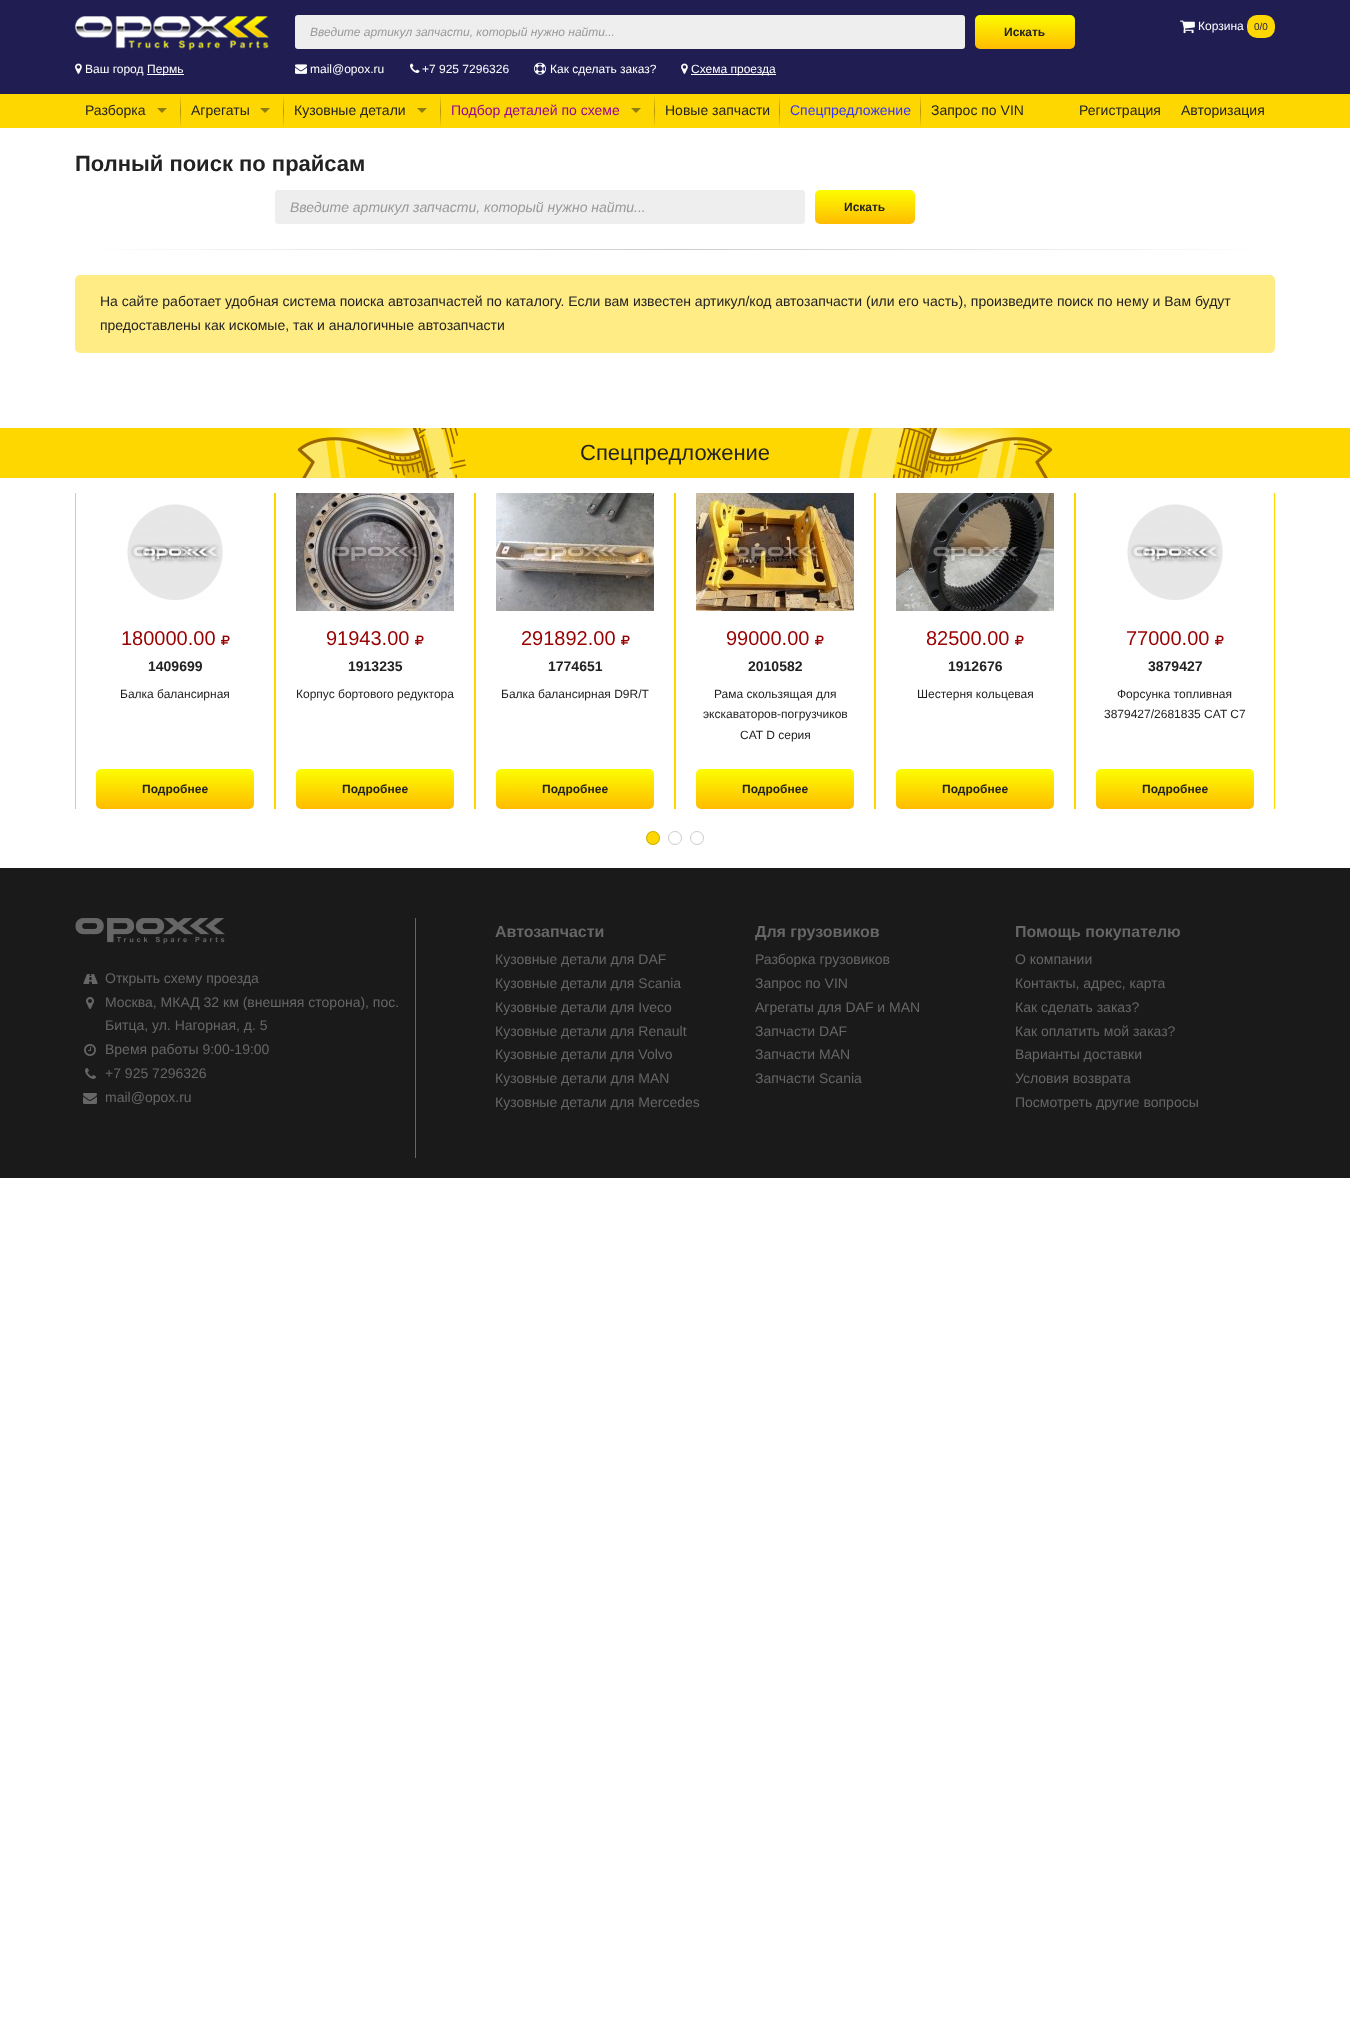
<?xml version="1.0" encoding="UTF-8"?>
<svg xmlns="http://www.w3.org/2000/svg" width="1350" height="2018">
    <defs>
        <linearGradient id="g1" gradientUnits="userSpaceOnUse" x1="1025" y1="15" x2="1025" y2="49"><stop offset="0" stop-color="#FCFD00"/><stop offset="1" stop-color="#FFBB00"/></linearGradient>
        <linearGradient id="g2" gradientUnits="userSpaceOnUse" x1="181" y1="128" x2="181" y2="94"><stop offset="0" stop-color="#FED700"/><stop offset="0.5" stop-color="#B29700"/><stop offset="1" stop-color="#FED700"/></linearGradient>
        <linearGradient id="g3" gradientUnits="userSpaceOnUse" x1="284" y1="128" x2="284" y2="94"><stop offset="0" stop-color="#FED700"/><stop offset="0.5" stop-color="#B29700"/><stop offset="1" stop-color="#FED700"/></linearGradient>
        <linearGradient id="g4" gradientUnits="userSpaceOnUse" x1="441" y1="128" x2="441" y2="94"><stop offset="0" stop-color="#FED700"/><stop offset="0.5" stop-color="#B29700"/><stop offset="1" stop-color="#FED700"/></linearGradient>
        <linearGradient id="g5" gradientUnits="userSpaceOnUse" x1="655" y1="128" x2="655" y2="94"><stop offset="0" stop-color="#FED700"/><stop offset="0.5" stop-color="#B29700"/><stop offset="1" stop-color="#FED700"/></linearGradient>
        <linearGradient id="g6" gradientUnits="userSpaceOnUse" x1="780" y1="128" x2="780" y2="94"><stop offset="0" stop-color="#FED700"/><stop offset="0.5" stop-color="#B29700"/><stop offset="1" stop-color="#FED700"/></linearGradient>
        <linearGradient id="g7" gradientUnits="userSpaceOnUse" x1="921" y1="128" x2="921" y2="94"><stop offset="0" stop-color="#FED700"/><stop offset="0.5" stop-color="#B29700"/><stop offset="1" stop-color="#FED700"/></linearGradient>
        <linearGradient id="g8" gradientUnits="userSpaceOnUse" x1="865" y1="190" x2="865" y2="224"><stop offset="0" stop-color="#FCFD00"/><stop offset="1" stop-color="#FFBB00"/></linearGradient>
        <linearGradient id="g9" gradientUnits="userSpaceOnUse" x1="75" y1="250" x2="1275" y2="249"><stop offset="0" stop-color="#FFFFFF"/><stop offset="0.5" stop-color="#CCCCCC"/><stop offset="1" stop-color="#FFFFFF"/></linearGradient>
        <linearGradient id="g10" gradientUnits="userSpaceOnUse" x1="175" y1="769" x2="175" y2="809"><stop offset="0" stop-color="#FCFD00"/><stop offset="1" stop-color="#FFBB00"/></linearGradient>
        <linearGradient id="g11" gradientUnits="userSpaceOnUse" x1="375" y1="769" x2="375" y2="809"><stop offset="0" stop-color="#FCFD00"/><stop offset="1" stop-color="#FFBB00"/></linearGradient>
        <linearGradient id="g12" gradientUnits="userSpaceOnUse" x1="575" y1="769" x2="575" y2="809"><stop offset="0" stop-color="#FCFD00"/><stop offset="1" stop-color="#FFBB00"/></linearGradient>
        <linearGradient id="g13" gradientUnits="userSpaceOnUse" x1="775" y1="769" x2="775" y2="809"><stop offset="0" stop-color="#FCFD00"/><stop offset="1" stop-color="#FFBB00"/></linearGradient>
        <linearGradient id="g14" gradientUnits="userSpaceOnUse" x1="975" y1="769" x2="975" y2="809"><stop offset="0" stop-color="#FCFD00"/><stop offset="1" stop-color="#FFBB00"/></linearGradient>
        <linearGradient id="g15" gradientUnits="userSpaceOnUse" x1="1175" y1="769" x2="1175" y2="809"><stop offset="0" stop-color="#FCFD00"/><stop offset="1" stop-color="#FFBB00"/></linearGradient>
    </defs>
    <rect width="100%" height="100%" fill="#FFFFFF"/>
    <rect x="0" y="0" width="1350" height="94" fill="#201D52"/>
    <image x="75" y="16" width="194" height="34" href="img_01.png"/>
    <rect x="295" y="15" width="670" height="34" rx="3" fill="#EEEEEE"/>
    <text x="310" y="36" font-family="Liberation Sans" font-size="12" font-style="italic" fill="#999999">Введите артикул запчасти, который нужно найти...</text>
    <rect x="975" y="15" width="100" height="34" rx="5" fill="url(#g1)"/>
    <text x="1004" y="36" font-family="Liberation Sans" font-size="12" font-weight="700" fill="#222222">Искать</text>
    <image x="1180" y="20" width="15" height="14" href="img_02.png"/>
    <text x="1198" y="30" font-family="Liberation Sans" font-size="12" fill="#FFFFFF">Корзина</text>
    <rect x="1247" y="15" width="28" height="23" rx="10" fill="#FED700"/>
    <text x="1254" y="30" font-family="Liberation Sans" font-size="10" fill="#201D52">0/0</text>
    <image x="75" y="63" width="7" height="11" href="img_03.png"/>
    <text x="85" y="73" font-family="Liberation Sans" font-size="12" fill="#FFFFFF">Ваш город</text>
    <rect x="147" y="74" width="37" height="1" fill="#FFFFFF"/>
    <text x="147" y="73" font-family="Liberation Sans" font-size="12" fill="#FFFFFF">Пермь</text>
    <image x="295" y="64" width="12" height="10" href="img_04.png"/>
    <text x="310" y="73" font-family="Liberation Sans" font-size="12" fill="#FFFFFF">mail@opox.ru</text>
    <image x="410" y="63" width="10" height="10" href="img_05.png"/>
    <text x="422" y="73" font-family="Liberation Sans" font-size="12" fill="#FFFFFF">+7 925 7296326</text>
    <image x="534" y="62" width="12" height="13" href="img_06.png"/>
    <text x="550" y="73" font-family="Liberation Sans" font-size="12" fill="#FFFFFF">Как сделать заказ?</text>
    <image x="681" y="63" width="7" height="11" href="img_03.png"/>
    <rect x="691" y="74" width="85" height="1" fill="#FFFFFF"/>
    <text x="691" y="73" font-family="Liberation Sans" font-size="12" fill="#FFFFFF">Схема проезда</text>
    <rect x="0" y="94" width="1350" height="34" fill="#FED700"/>
    <rect x="180" y="94" width="1" height="34" fill="url(#g2)"/>
    <text x="85" y="115" font-family="Liberation Sans" font-size="14" fill="#222222">Разборка</text>
    <path d="M 157 108 H 167 L 162 113 Z" fill="#907D11"/>
    <rect x="283" y="94" width="1" height="34" fill="url(#g3)"/>
    <text x="191" y="115" font-family="Liberation Sans" font-size="14" fill="#222222">Агрегаты</text>
    <path d="M 260 108 H 270 L 265 113 Z" fill="#907D11"/>
    <rect x="440" y="94" width="1" height="34" fill="url(#g4)"/>
    <text x="294" y="115" font-family="Liberation Sans" font-size="14" fill="#222222">Кузовные детали</text>
    <path d="M 417 108 H 427 L 422 113 Z" fill="#907D11"/>
    <rect x="654" y="94" width="1" height="34" fill="url(#g5)"/>
    <text x="451" y="115" font-family="Liberation Sans" font-size="14" fill="#990099">Подбор деталей по схеме</text>
    <path d="M 631 108 H 641 L 636 113 Z" fill="#907D11"/>
    <rect x="779" y="94" width="1" height="34" fill="url(#g6)"/>
    <text x="665" y="115" font-family="Liberation Sans" font-size="14" fill="#222222">Новые запчасти</text>
    <rect x="920" y="94" width="1" height="34" fill="url(#g7)"/>
    <text x="790" y="115" font-family="Liberation Sans" font-size="14" fill="#3333FF">Спецпредложение</text>
    <text x="931" y="115" font-family="Liberation Sans" font-size="14" fill="#222222">Запрос по VIN</text>
    <text x="1079" y="115" font-family="Liberation Sans" font-size="14" fill="#222222">Регистрация</text>
    <text x="1181" y="115" font-family="Liberation Sans" font-size="14" fill="#222222">Авторизация</text>
    <text x="75" y="171" font-family="Liberation Sans" font-size="22" font-weight="700" fill="#222222">Полный поиск по прайсам</text>
    <rect x="275" y="190" width="530" height="34" rx="3" fill="#EEEEEE"/>
    <text x="290" y="212" font-family="Liberation Sans" font-size="14" font-style="italic" fill="#999999">Введите артикул запчасти, который нужно найти...</text>
    <rect x="815" y="190" width="100" height="34" rx="5" fill="url(#g8)"/>
    <text x="844" y="211" font-family="Liberation Sans" font-size="12" font-weight="700" fill="#222222">Искать</text>
    <rect x="104" y="249" width="1142" height="1" fill="url(#g9)"/>
    <rect x="75" y="275" width="1200" height="78" rx="5" fill="#FFEC85"/>
    <text font-family="Liberation Sans" font-size="14" fill="#222222">
        <tspan x="100" y="306">На сайте работает удобная система поиска автозапчастей по каталогу. Если вам известен артикул/код автозапчасти (или его часть), произведите поиск по нему и Вам будут</tspan>
        <tspan x="100" y="330">предоставлены как искомые, так и аналогичные автозапчасти</tspan>
    </text>
    <rect x="0" y="428" width="1350" height="50" fill="#FED700"/>
    <image x="297" y="428" width="756" height="50" href="img_07.png"/>
    <text x="580" y="460" font-family="Liberation Sans" font-size="22" fill="#222222">Спецпредложение</text>
    <rect x="274" y="493" width="2" height="316" fill="#FED700"/>
    <rect x="75" y="493" width="1" height="316" fill="#FED700"/>
    <image x="127" y="504" width="96" height="96" href="img_08.png"/>
    <text x="121" y="645" font-family="Liberation Sans" font-size="20" fill="#990000">180000.00</text>
    <image x="221" y="635" width="9" height="10" href="img_09.png"/>
    <text x="148" y="671" font-family="Liberation Sans" font-size="14" font-weight="700" fill="#222222">1409699</text>
    <text x="120" y="698" font-family="Liberation Sans" font-size="12" fill="#222222">Балка балансирная</text>
    <rect x="96" y="769" width="158" height="40" rx="5" fill="url(#g10)"/>
    <text x="142" y="793" font-family="Liberation Sans" font-size="12" font-weight="700" fill="#222222">Подробнее</text>
    <rect x="474" y="493" width="2" height="316" fill="#FED700"/>
    <image x="296" y="493" width="158" height="118" href="img_10.png"/>
    <text x="326" y="645" font-family="Liberation Sans" font-size="20" fill="#990000">91943.00</text>
    <image x="415" y="635" width="9" height="10" href="img_09.png"/>
    <text x="348" y="671" font-family="Liberation Sans" font-size="14" font-weight="700" fill="#222222">1913235</text>
    <text x="296" y="698" font-family="Liberation Sans" font-size="12" fill="#222222">Корпус бортового редуктора</text>
    <rect x="296" y="769" width="158" height="40" rx="5" fill="url(#g11)"/>
    <text x="342" y="793" font-family="Liberation Sans" font-size="12" font-weight="700" fill="#222222">Подробнее</text>
    <rect x="674" y="493" width="2" height="316" fill="#FED700"/>
    <image x="496" y="493" width="158" height="118" href="img_11.png"/>
    <text x="521" y="645" font-family="Liberation Sans" font-size="20" fill="#990000">291892.00</text>
    <image x="621" y="635" width="9" height="10" href="img_09.png"/>
    <text x="548" y="671" font-family="Liberation Sans" font-size="14" font-weight="700" fill="#222222">1774651</text>
    <text x="501" y="698" font-family="Liberation Sans" font-size="12" fill="#222222">Балка балансирная D9R/T</text>
    <rect x="496" y="769" width="158" height="40" rx="5" fill="url(#g12)"/>
    <text x="542" y="793" font-family="Liberation Sans" font-size="12" font-weight="700" fill="#222222">Подробнее</text>
    <rect x="874" y="493" width="2" height="316" fill="#FED700"/>
    <image x="696" y="493" width="158" height="118" href="img_12.png"/>
    <text x="726" y="645" font-family="Liberation Sans" font-size="20" fill="#990000">99000.00</text>
    <image x="815" y="635" width="9" height="10" href="img_09.png"/>
    <text x="748" y="671" font-family="Liberation Sans" font-size="14" font-weight="700" fill="#222222">2010582</text>
    <text x="714" y="698" font-family="Liberation Sans" font-size="12" fill="#222222">Рама скользящая для</text>
    <text x="703" y="718" font-family="Liberation Sans" font-size="12" fill="#222222">экскаваторов-погрузчиков</text>
    <text x="740" y="739" font-family="Liberation Sans" font-size="12" fill="#222222">CAT D серия</text>
    <rect x="696" y="769" width="158" height="40" rx="5" fill="url(#g13)"/>
    <text x="742" y="793" font-family="Liberation Sans" font-size="12" font-weight="700" fill="#222222">Подробнее</text>
    <rect x="1074" y="493" width="2" height="316" fill="#FED700"/>
    <image x="896" y="493" width="158" height="118" href="img_13.png"/>
    <text x="926" y="645" font-family="Liberation Sans" font-size="20" fill="#990000">82500.00</text>
    <image x="1015" y="635" width="9" height="10" href="img_09.png"/>
    <text x="948" y="671" font-family="Liberation Sans" font-size="14" font-weight="700" fill="#222222">1912676</text>
    <text x="917" y="698" font-family="Liberation Sans" font-size="12" fill="#222222">Шестерня кольцевая</text>
    <rect x="896" y="769" width="158" height="40" rx="5" fill="url(#g14)"/>
    <text x="942" y="793" font-family="Liberation Sans" font-size="12" font-weight="700" fill="#222222">Подробнее</text>
    <rect x="1274" y="493" width="1" height="316" fill="#FED700"/>
    <image x="1127" y="504" width="96" height="96" href="img_08.png"/>
    <text x="1126" y="645" font-family="Liberation Sans" font-size="20" fill="#990000">77000.00</text>
    <image x="1215" y="635" width="9" height="10" href="img_09.png"/>
    <text x="1148" y="671" font-family="Liberation Sans" font-size="14" font-weight="700" fill="#222222">3879427</text>
    <text x="1117" y="698" font-family="Liberation Sans" font-size="12" fill="#222222">Форсунка топливная</text>
    <text x="1104" y="718" font-family="Liberation Sans" font-size="12" fill="#222222">3879427/2681835 CAT C7</text>
    <rect x="1096" y="769" width="158" height="40" rx="5" fill="url(#g15)"/>
    <text x="1142" y="793" font-family="Liberation Sans" font-size="12" font-weight="700" fill="#222222">Подробнее</text>
    <circle cx="653" cy="838" r="7" fill="#FED700"/>
    <circle cx="653" cy="838" r="6.5" fill="none" stroke="#000000" stroke-opacity="0.2"/>
    <circle cx="675" cy="838" r="6.5" fill="none" stroke="#CCCCCC"/>
    <circle cx="697" cy="838" r="6.5" fill="none" stroke="#CCCCCC"/>
    <rect x="0" y="868" width="1350" height="310" fill="#1A1A1A"/>
    <rect x="415" y="918" width="1" height="240" fill="#666666"/>
    <image x="75" y="918" width="150" height="26" href="img_14.png"/>
    <image x="83" y="974" width="15" height="10" href="img_15.png"/>
    <text x="105" y="983" font-family="Liberation Sans" font-size="14" fill="#666666">Открыть схему проезда</text>
    <image x="86" y="997" width="8" height="12" href="img_16.png"/>
    <text font-family="Liberation Sans" font-size="14" fill="#666666">
        <tspan x="105" y="1007">Москва, МКАД 32 км (внешняя сторона), пос.</tspan>
        <tspan x="105" y="1030">Битца, ул. Нагорная, д. 5</tspan>
    </text>
    <image x="84" y="1044" width="12" height="12" href="img_17.png"/>
    <text x="105" y="1054" font-family="Liberation Sans" font-size="14" fill="#666666">Время работы 9:00-19:00</text>
    <image x="85" y="1068" width="11" height="11" href="img_18.png"/>
    <text x="105" y="1078" font-family="Liberation Sans" font-size="14" fill="#666666">+7 925 7296326</text>
    <image x="83" y="1093" width="14" height="11" href="img_19.png"/>
    <text x="105" y="1102" font-family="Liberation Sans" font-size="14" fill="#666666">mail@opox.ru</text>
    <text x="495" y="937" font-family="Liberation Sans" font-size="16" font-weight="700" fill="#666666">Автозапчасти</text>
    <text font-family="Liberation Sans" font-size="14" fill="#666666">
        <tspan x="495" y="964">Кузовные детали для DAF</tspan>
        <tspan x="495" y="988">Кузовные детали для Scania</tspan>
        <tspan x="495" y="1012">Кузовные детали для Iveco</tspan>
        <tspan x="495" y="1036">Кузовные детали для Renault</tspan>
        <tspan x="495" y="1059">Кузовные детали для Volvo</tspan>
        <tspan x="495" y="1083">Кузовные детали для MAN</tspan>
        <tspan x="495" y="1107">Кузовные детали для Mercedes</tspan>
    </text>
    <text x="755" y="937" font-family="Liberation Sans" font-size="16" font-weight="700" fill="#666666">Для грузовиков</text>
    <text font-family="Liberation Sans" font-size="14" fill="#666666">
        <tspan x="755" y="964">Разборка грузовиков</tspan>
        <tspan x="755" y="988">Запрос по VIN</tspan>
        <tspan x="755" y="1012">Агрегаты для DAF и MAN</tspan>
        <tspan x="755" y="1036">Запчасти DAF</tspan>
        <tspan x="755" y="1059">Запчасти MAN</tspan>
        <tspan x="755" y="1083">Запчасти Scania</tspan>
    </text>
    <text x="1015" y="937" font-family="Liberation Sans" font-size="16" font-weight="700" fill="#666666">Помощь покупателю</text>
    <text font-family="Liberation Sans" font-size="14" fill="#666666">
        <tspan x="1015" y="964">О компании</tspan>
        <tspan x="1015" y="988">Контакты, адрес, карта</tspan>
        <tspan x="1015" y="1012">Как сделать заказ?</tspan>
        <tspan x="1015" y="1036">Как оплатить мой заказ?</tspan>
        <tspan x="1015" y="1059">Варианты доставки</tspan>
        <tspan x="1015" y="1083">Условия возврата</tspan>
        <tspan x="1015" y="1107">Посмотреть другие вопросы</tspan>
    </text>
</svg>
